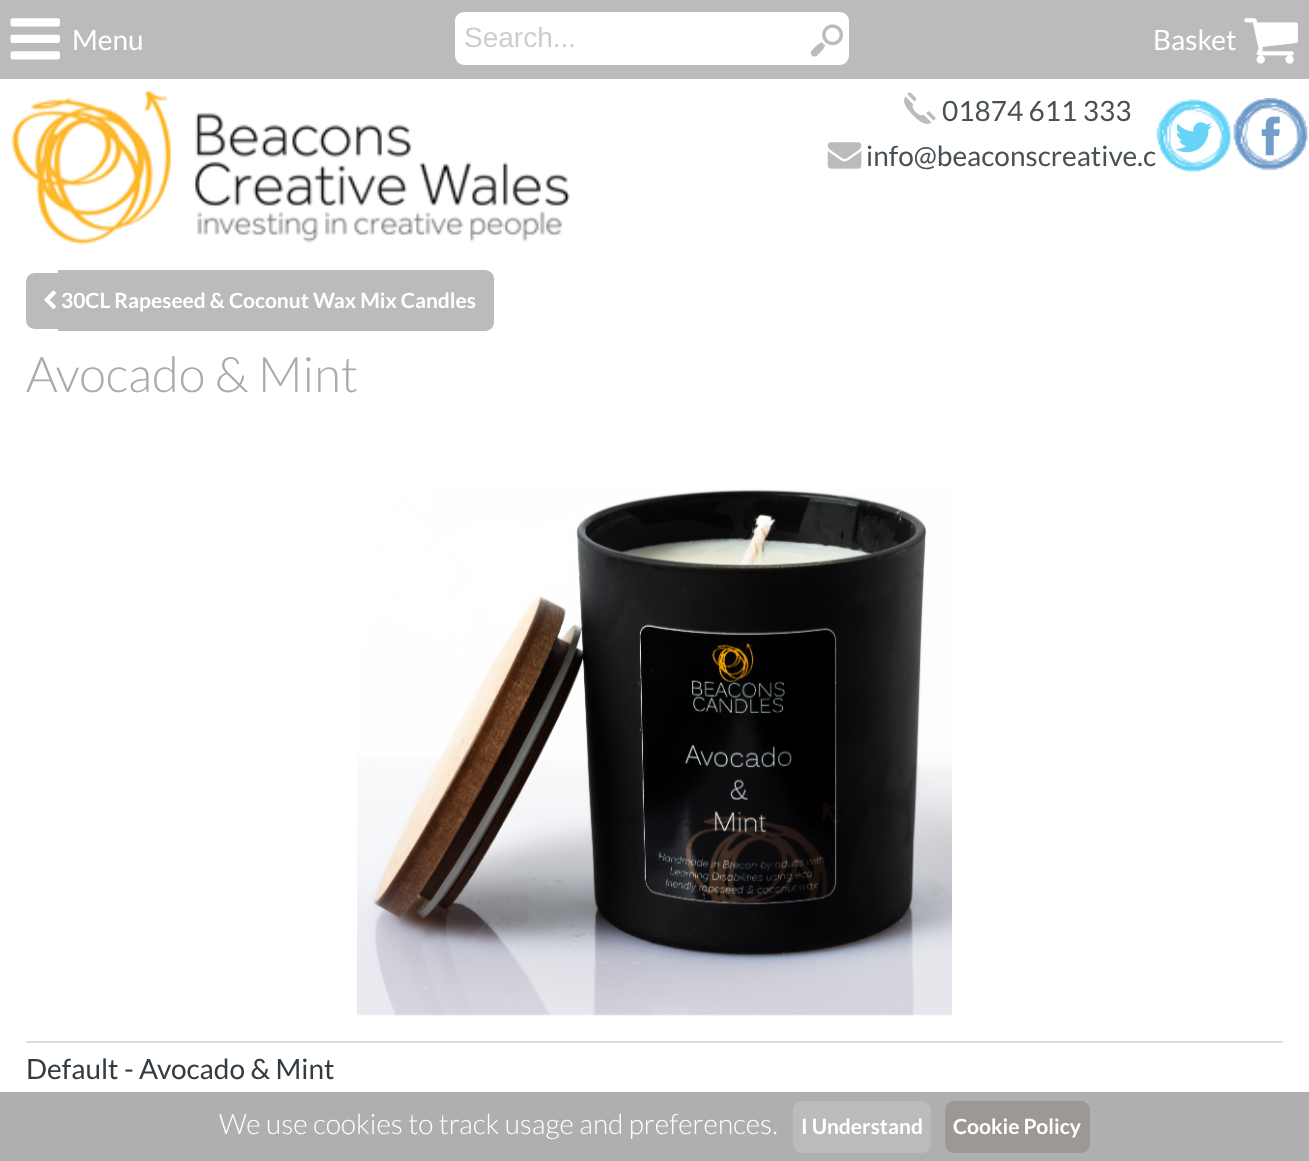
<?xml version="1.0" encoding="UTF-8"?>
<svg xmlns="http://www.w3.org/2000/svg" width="1309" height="1161">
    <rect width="100%" height="100%" fill="#FFFFFF"/>
    <rect x="0" y="1092" width="1309" height="69" fill="#AFAFAF"/>
    <rect x="0" y="0" width="1309" height="79" fill="#BBBBBB"/>
    <image x="10" y="18" width="50" height="42" href="img_01.png"/>
    <text x="72" y="50" font-family="Lato" font-size="28" fill="#FFFFFF">Menu</text>
    <rect x="455" y="12" width="394" height="53" rx="9" fill="#FFFFFF"/>
    <text x="464" y="47" font-family="Liberation Sans" font-size="28" fill="#CFCDCA">Search...</text>
    <image x="810" y="24" width="33" height="33" href="img_02.png"/>
    <text x="1153" y="50" font-family="Lato" font-size="28" fill="#FFFFFF">Basket</text>
    <image x="1244" y="18" width="54" height="46" href="img_03.png"/>
    <image x="11" y="89" width="559" height="156" href="img_04.png"/>
    <image x="904" y="92" width="32" height="32" href="img_05.png"/>
    <text x="942" y="121" font-family="Lato" font-size="28" fill="#485156">01874 611 333</text>
    <image x="827" y="142" width="35" height="27" href="img_06.png"/>
    <text x="866" y="166" font-family="Lato" font-size="28" fill="#485156">info@beaconscreative.c</text>
    <image x="1156" y="99" width="75" height="73" href="img_07.png"/>
    <image x="1175" y="122" width="37" height="31" href="img_08.png"/>
    <image x="1233" y="98" width="75" height="73" href="img_09.png"/>
    <image x="1261" y="116" width="19" height="40" href="img_10.png"/>
    <path d="M 35 273 H 58 V 329 H 35 C 30 329 26 325 26 320 V 282 C 26 277 30 273 35 273 Z" fill="#BBBBBB"/>
    <path d="M 58 270 H 485 C 490 270 494 274 494 279 V 322 C 494 327 490 331 485 331 H 58 Z" fill="#BBBBBB"/>
    <image x="44" y="290" width="12" height="19" href="img_11.png"/>
    <text x="61" y="308" font-family="Lato" font-size="21" font-weight="700" fill="#FFFFFF">30CL Rapeseed &amp; Coconut Wax Mix Candles</text>
    <text x="26" y="392" font-family="Lato" font-size="49" font-weight="300" fill="#AAAAAA">Avocado &amp; Mint</text>
    <image x="357" y="489" width="595" height="527" href="img_12.png"/>
    <rect x="26" y="1041" width="1257" height="2" fill="#DDDDDD"/>
    <text x="26" y="1079" font-family="Lato" font-size="28" fill="#313B41">Default - Avocado &amp; Mint</text>
    <text x="219" y="1134" font-family="Lato" font-size="28" font-weight="300" fill="#FFFFFF">We use cookies to track usage and preferences.</text>
    <rect x="793" y="1101" width="138" height="52" rx="9" fill="#BBBBBB"/>
    <text x="801" y="1134" font-family="Lato" font-size="21" font-weight="700" fill="#FFFFFF">I Understand</text>
    <rect x="945" y="1101" width="145" height="52" rx="9" fill="#9C9893"/>
    <text x="953" y="1134" font-family="Lato" font-size="21" font-weight="700" fill="#FFFFFF">Cookie Policy</text>
</svg>
